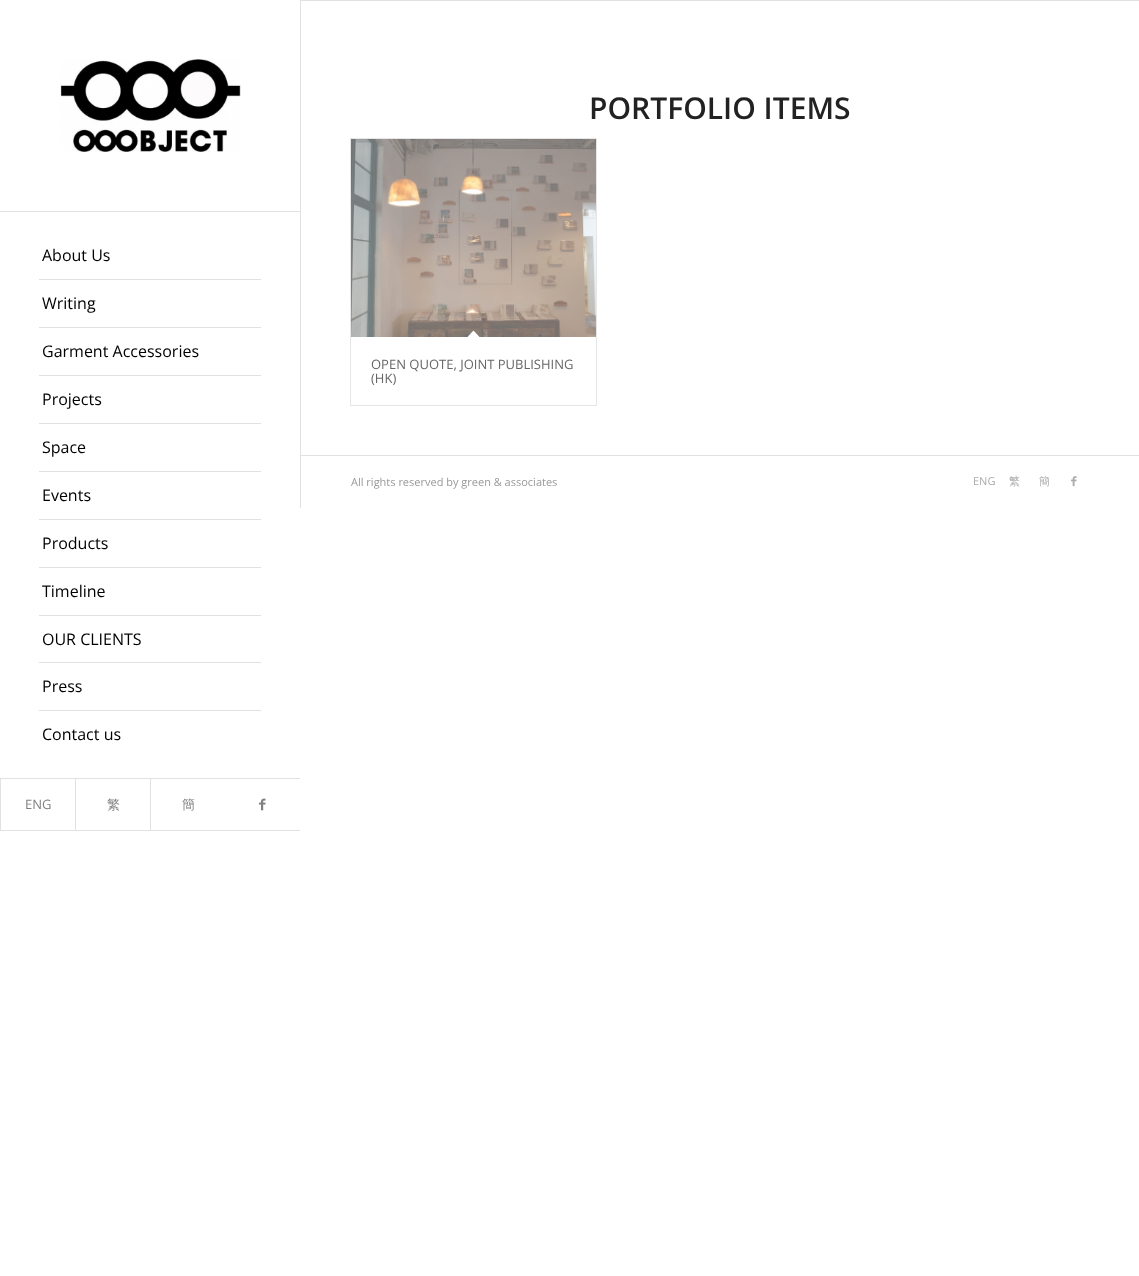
<?xml version="1.0" encoding="UTF-8"?>
<svg xmlns="http://www.w3.org/2000/svg" width="1139" height="1276">
    <rect width="100%" height="100%" fill="#FFFFFF"/>
    <rect x="0" y="830" width="300" height="1" fill="#E1E1E1"/>
    <rect x="0" y="211" width="300" height="1" fill="#E1E1E1"/>
    <image x="60" y="59" width="181" height="93" href="img_01.png"/>
    <rect x="39" y="279" width="222" height="1" fill="#E1E1E1"/>
    <text x="42" y="261" font-family="Open Sans" font-size="16" fill="#000000">About Us</text>
    <rect x="39" y="327" width="222" height="1" fill="#E1E1E1"/>
    <text x="42" y="309" font-family="Open Sans" font-size="16" fill="#000000">Writing</text>
    <rect x="39" y="375" width="222" height="1" fill="#E1E1E1"/>
    <text x="42" y="357" font-family="Open Sans" font-size="16" fill="#000000">Garment Accessories</text>
    <rect x="39" y="423" width="222" height="1" fill="#E1E1E1"/>
    <text x="42" y="405" font-family="Open Sans" font-size="16" fill="#000000">Projects</text>
    <rect x="39" y="471" width="222" height="1" fill="#E1E1E1"/>
    <text x="42" y="453" font-family="Open Sans" font-size="16" fill="#000000">Space</text>
    <rect x="39" y="519" width="222" height="1" fill="#E1E1E1"/>
    <text x="42" y="501" font-family="Open Sans" font-size="16" fill="#000000">Events</text>
    <rect x="39" y="567" width="222" height="1" fill="#E1E1E1"/>
    <text x="42" y="549" font-family="Open Sans" font-size="16" fill="#000000">Products</text>
    <rect x="39" y="615" width="222" height="1" fill="#E1E1E1"/>
    <text x="42" y="597" font-family="Open Sans" font-size="16" fill="#000000">Timeline</text>
    <rect x="39" y="662" width="222" height="1" fill="#E1E1E1"/>
    <text x="42" y="645" font-family="Open Sans" font-size="16" fill="#000000">OUR CLIENTS</text>
    <rect x="39" y="710" width="222" height="1" fill="#E1E1E1"/>
    <text x="42" y="692" font-family="Open Sans" font-size="16" fill="#000000">Press</text>
    <text x="42" y="740" font-family="Open Sans" font-size="16" fill="#000000">Contact us</text>
    <rect x="0" y="778" width="300" height="1" fill="#E1E1E1"/>
    <rect x="0" y="779" width="1" height="51" fill="#E1E1E1"/>
    <text x="25" y="809" font-family="Open Sans" font-size="13" fill="#808080">ENG</text>
    <rect x="75" y="779" width="1" height="51" fill="#E1E1E1"/>
    <text x="107" y="809" font-family="WenQuanYi Zen Hei" font-size="13" font-weight="500" fill="#808080">繁</text>
    <rect x="150" y="779" width="1" height="51" fill="#E1E1E1"/>
    <text x="182" y="809" font-family="WenQuanYi Zen Hei" font-size="13" font-weight="500" fill="#808080">簡</text>
    <image x="259" y="798" width="7" height="13" href="img_02.png"/>
    <rect x="300" y="0" width="1" height="508" fill="#E1E1E1"/>
    <rect x="301" y="0" width="838" height="1" fill="#E1E1E1"/>
    <text x="589" y="119" font-family="Open Sans" font-size="30" font-weight="600" fill="#222222">PORTFOLIO ITEMS</text>
    <rect x="350.5" y="138.5" width="246" height="267" fill="none" stroke="#E6E6E6"/>
    <image x="351" y="139" width="245" height="198" href="img_03.png"/>
    <path d="M 473.5 330.5 L 480.5 338 L 473.5 345 L 466.5 338 Z" fill="#FFFFFF"/>
    <text font-family="Open Sans" font-size="13" fill="#666666">
        <tspan x="371" y="369">OPEN QUOTE, JOINT PUBLISHING</tspan>
        <tspan x="371" y="383">(HK)</tspan>
    </text>
    <rect x="301" y="455" width="838" height="1" fill="#E1E1E1"/>
    <text x="351" y="486" font-family="Open Sans" font-size="11" fill="#999999">All rights reserved by green &amp; associates</text>
    <text x="973" y="485" font-family="Open Sans" font-size="11" fill="#AAAAAA">ENG</text>
    <text x="1009" y="485" font-family="WenQuanYi Zen Hei" font-size="11" font-weight="500" fill="#AAAAAA">繁</text>
    <text x="1039" y="485" font-family="WenQuanYi Zen Hei" font-size="11" font-weight="500" fill="#AAAAAA">簡</text>
    <image x="1071" y="476" width="6" height="11" href="img_04.png"/>
</svg>
